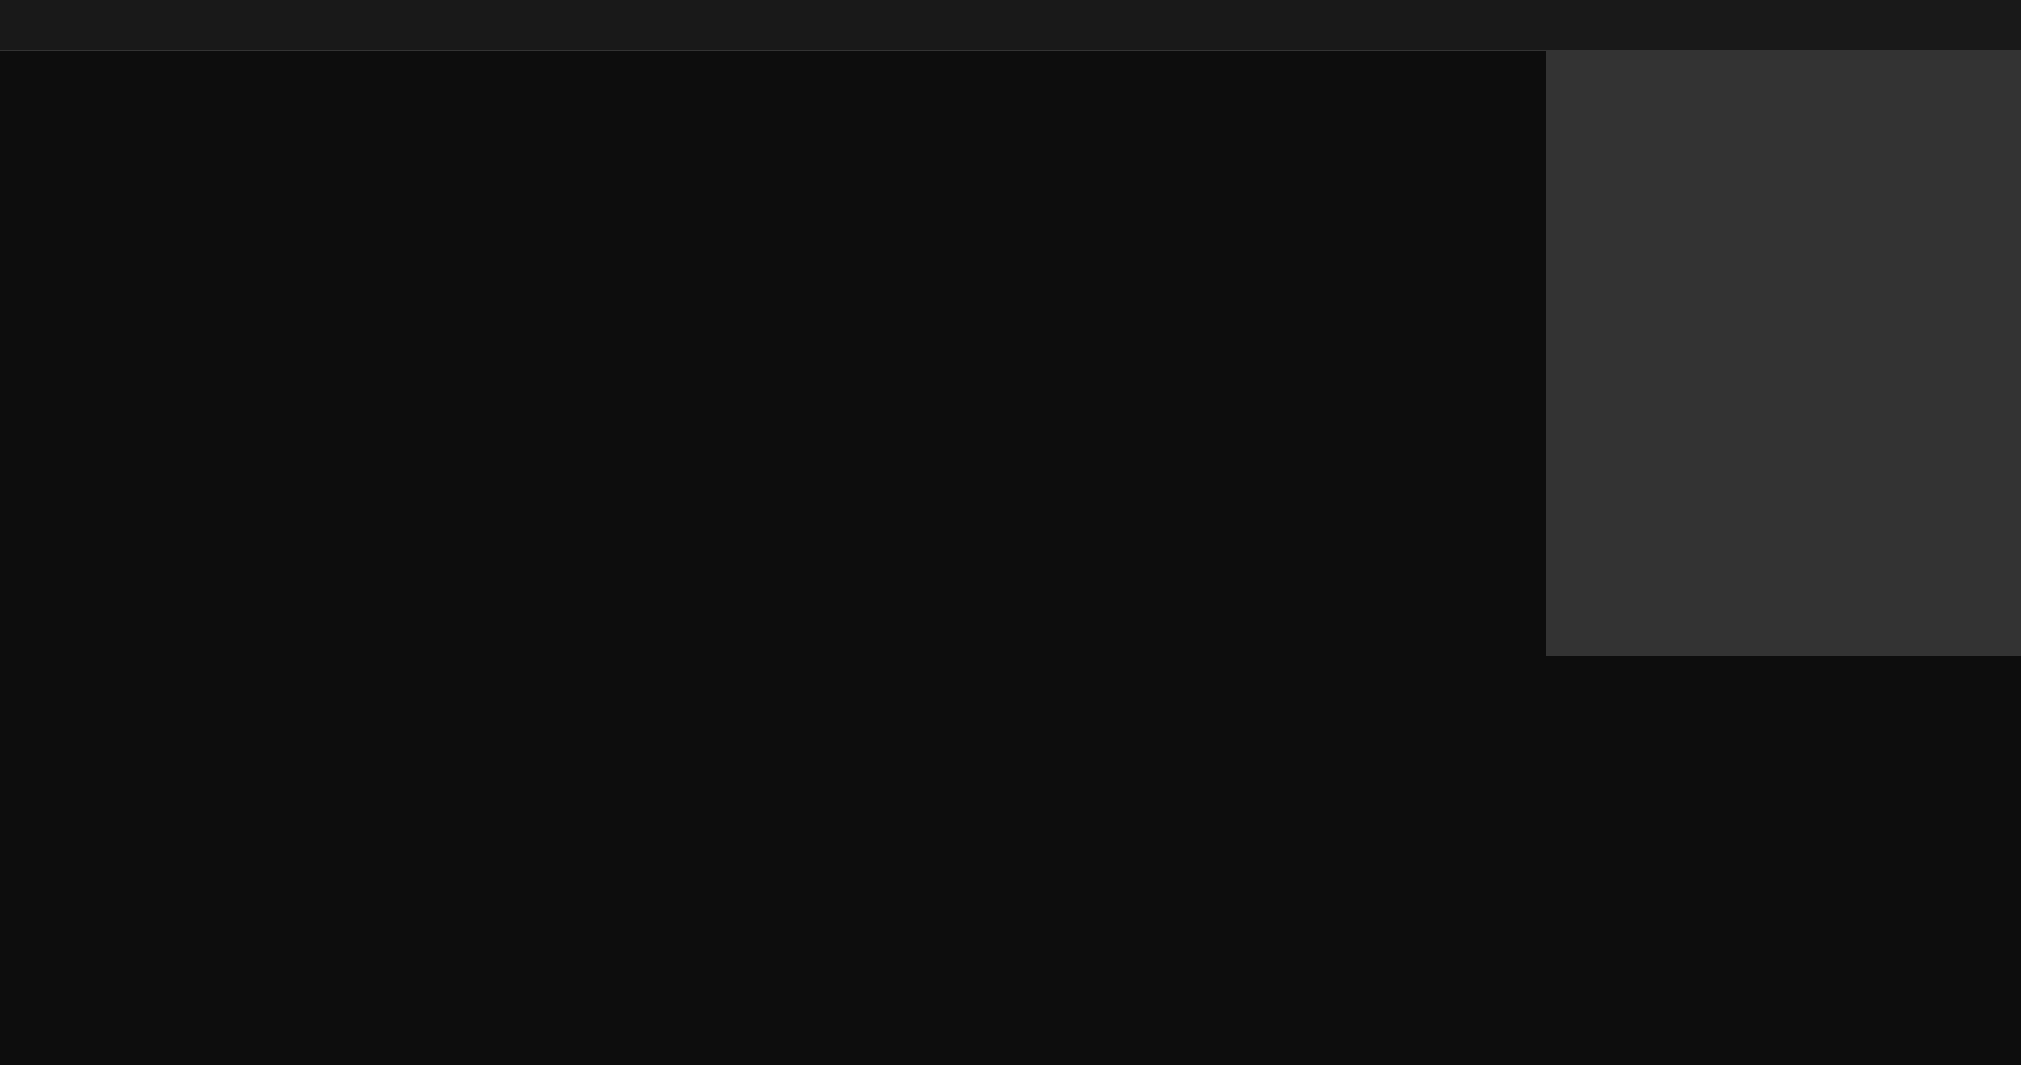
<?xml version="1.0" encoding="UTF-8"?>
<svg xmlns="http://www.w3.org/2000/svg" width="2021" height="1065">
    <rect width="100%" height="100%" fill="#191919"/>
    <rect x="0" y="50" width="2021" height="1" fill="#333333"/>
    <rect x="0" y="51" width="2021" height="1014" fill="#0D0D0D"/>
    <rect x="1546" y="51" width="475" height="605" fill="#333333"/>
</svg>
